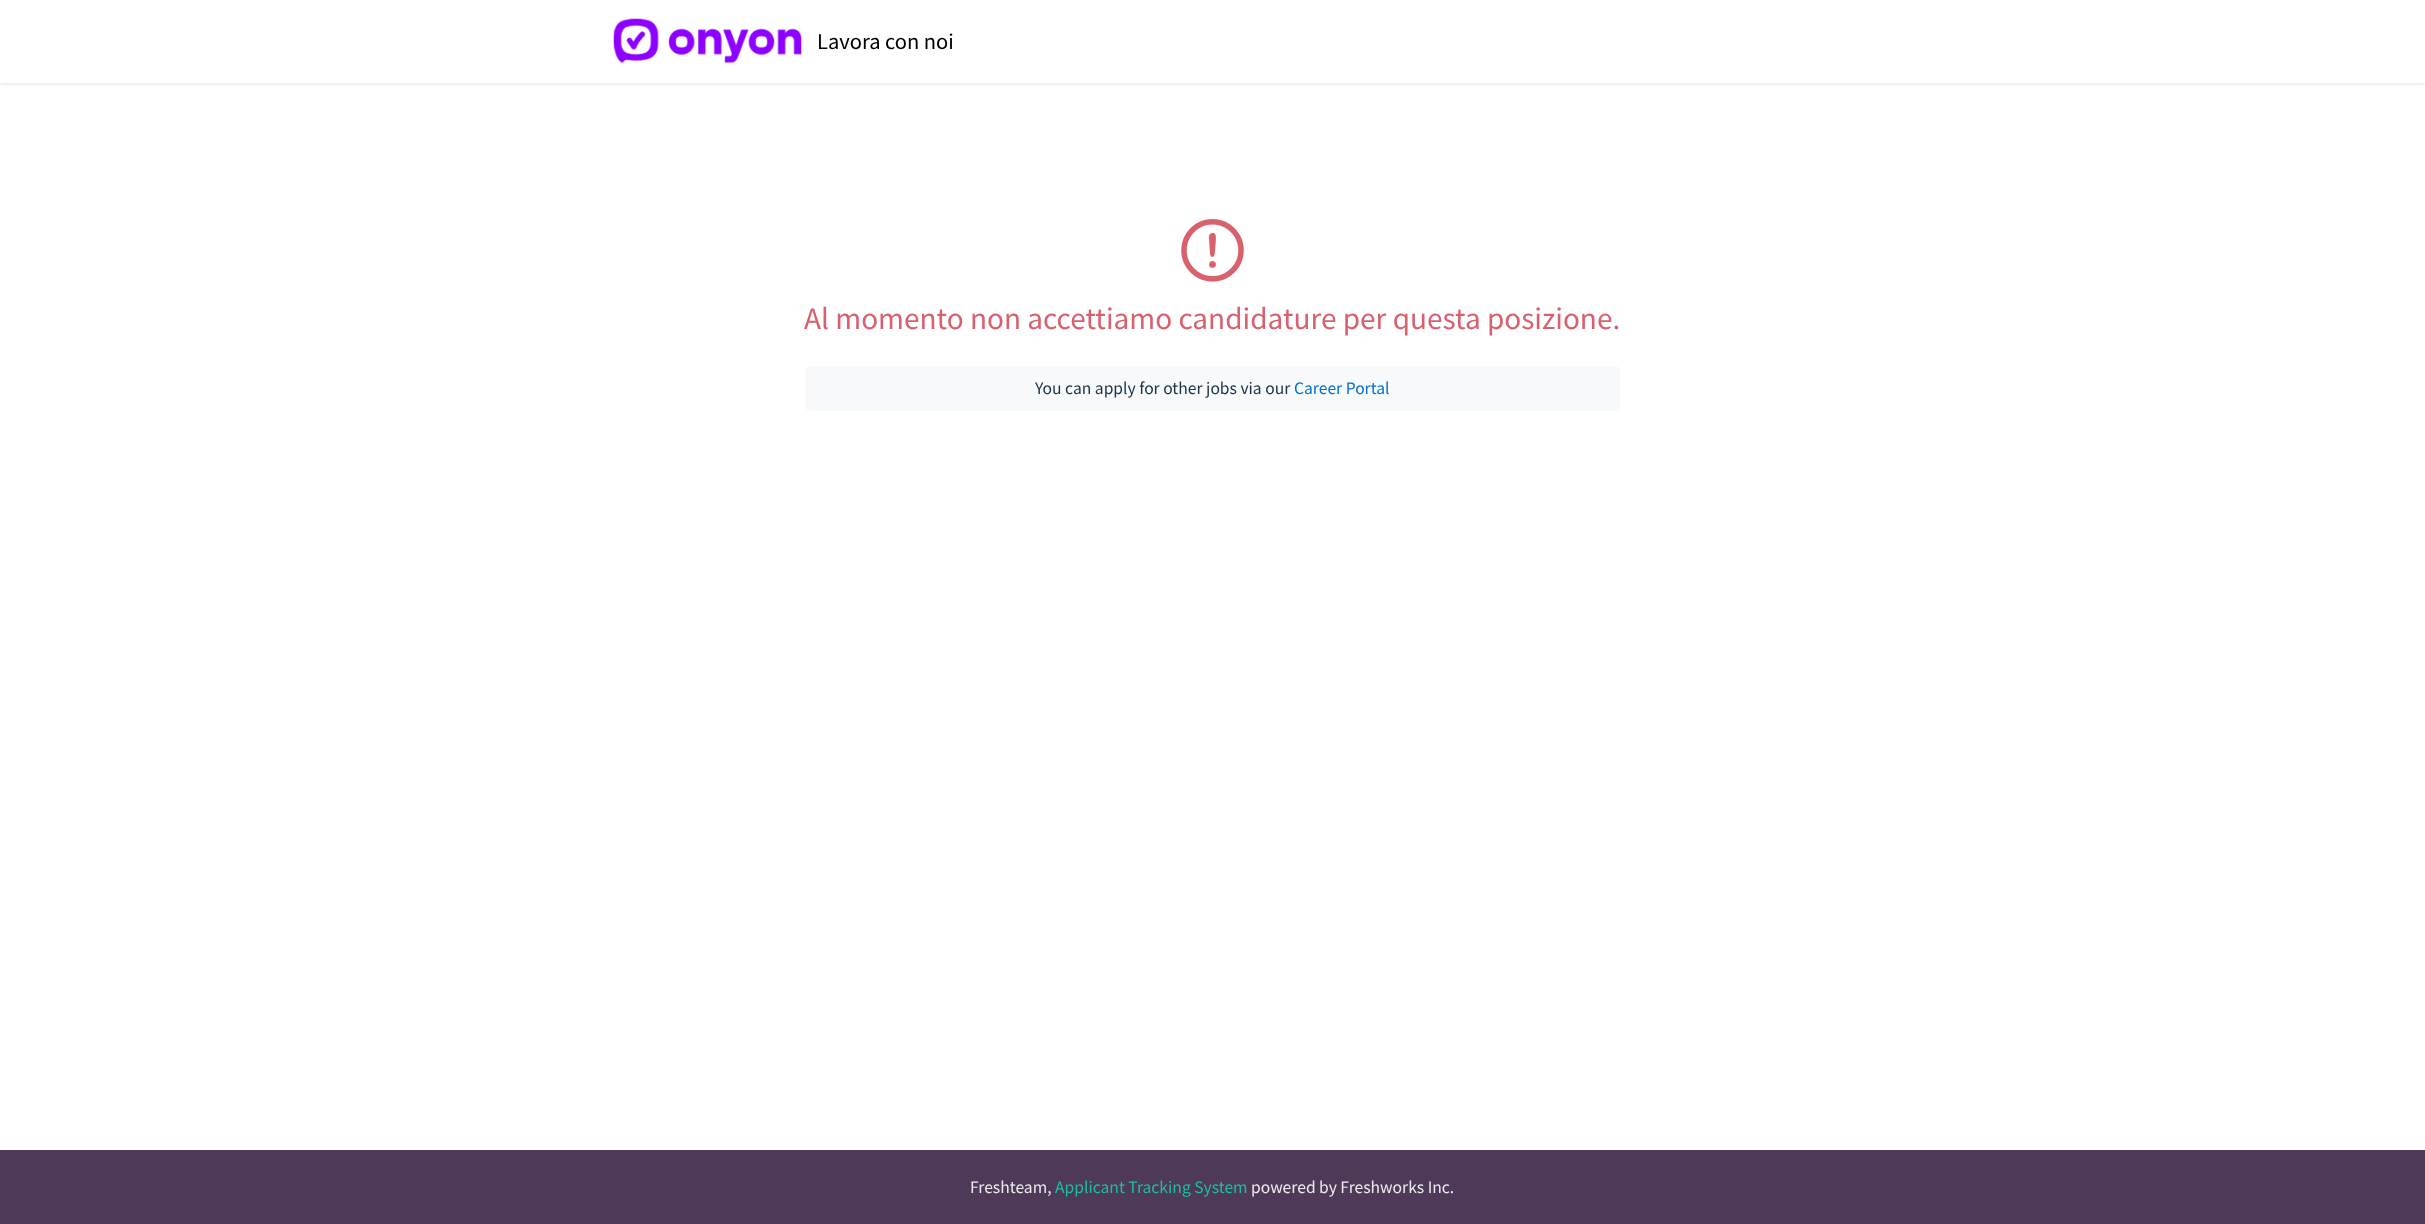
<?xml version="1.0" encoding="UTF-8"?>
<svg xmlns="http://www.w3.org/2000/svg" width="2425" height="1224">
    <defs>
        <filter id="blur1" x="-50%" y="-200%" width="200%" height="500%"><feGaussianBlur stdDeviation="2"/></filter>
    </defs>
    <rect width="100%" height="100%" fill="#FFFFFF"/>
    <rect x="0" y="0" width="2425" height="83" fill="#183247" fill-opacity="0.2" filter="url(#blur1)"/>
    <rect x="0" y="0" width="2425" height="83" fill="#FFFFFF"/>
    <image x="613" y="18" width="189" height="45" href="img_01.png"/>
    <text x="817" y="49" font-family="Source Sans Pro" font-size="22.5" fill="#000000">Lavora con noi</text>
    <image x="1181" y="219" width="63" height="63" href="img_02.png"/>
    <text x="804" y="329" font-family="Source Sans Pro" font-size="31.25" fill="#D9616E">Al momento non accettiamo candidature per questa posizione.</text>
    <rect x="805" y="366" width="815" height="45" rx="5" fill="#F8F9FA"/>
    <text x="1035" y="394" font-family="Source Sans Pro" font-size="17.5" fill="#183247">You can apply for other jobs via our</text>
    <text x="1294" y="394" font-family="Source Sans Pro" font-size="17.5" fill="#0070D0">Career Portal</text>
    <rect x="0" y="1150" width="2425" height="74" fill="#4E3959"/>
    <text x="970" y="1193" font-family="Source Sans Pro" font-size="17.5" fill="#EDEBEE">Freshteam,</text>
    <text x="1055" y="1193" font-family="Source Sans Pro" font-size="17.5" fill="#1EBEA5">Applicant Tracking System</text>
    <text x="1251" y="1193" font-family="Source Sans Pro" font-size="17.5" fill="#EDEBEE">powered by Freshworks Inc.</text>
</svg>
